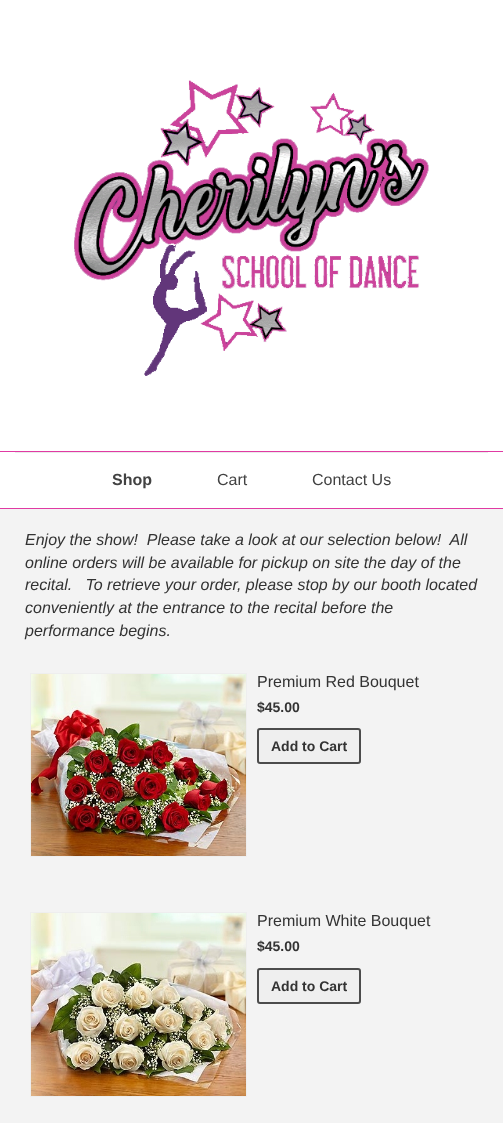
<?xml version="1.0" encoding="UTF-8"?>
<svg xmlns="http://www.w3.org/2000/svg" width="503" height="1123">
    <rect width="100%" height="100%" fill="#F3F3F3"/>
    <rect x="0" y="0" width="503" height="451" fill="#FFFFFF"/>
    <image x="74" y="80" width="355" height="296" href="img_01.png"/>
    <rect x="0" y="452" width="503" height="56" fill="#FFFFFF"/>
    <rect x="0" y="451" width="503" height="1" fill="#E03AA3"/>
    <rect x="0" y="508" width="503" height="1" fill="#E03AA3"/>
    <rect x="15" y="452" width="473" height="1" fill="#EAEAEA"/>
    <text x="112" y="485" font-family="Liberation Sans" font-size="16" font-weight="700" fill="#424242">Shop</text>
    <text x="217" y="485" font-family="Liberation Sans" font-size="16" fill="#424242">Cart</text>
    <text x="312" y="485" font-family="Liberation Sans" font-size="16" fill="#424242">Contact Us</text>
    <text font-family="Liberation Sans" font-size="16" font-style="italic" fill="#333333" xml:space="preserve"><tspan x="25" y="545">Enjoy the show!  Please take a look at our selection below!  All</tspan><tspan x="25" y="568">online orders will be available for pickup on site the day of the</tspan><tspan x="25" y="590">recital.   To retrieve your order, please stop by our booth located</tspan><tspan x="25" y="613">conveniently at the entrance to the recital before the</tspan><tspan x="25" y="636">performance begins.</tspan></text>
    <rect x="30.5" y="673.5" width="216" height="183" fill="none" stroke="#EEEEEE"/>
    <image x="31" y="674" width="215" height="182" href="img_02.png"/>
    <text x="257" y="687" font-family="Liberation Sans" font-size="16" fill="#333333">Premium Red Bouquet</text>
    <text x="257" y="712" font-family="Liberation Sans" font-size="14" font-weight="700" fill="#333333">$45.00</text>
    <rect x="258" y="729" width="102" height="34" rx="2" fill="#EFEFEF" stroke="#4C4C4C" stroke-width="2"/>
    <text x="271" y="751" font-family="Liberation Sans" font-size="14" font-weight="700" fill="#333333">Add to Cart</text>
    <rect x="30.5" y="912.5" width="216" height="184" fill="none" stroke="#EEEEEE"/>
    <image x="31" y="913" width="215" height="183" href="img_03.png"/>
    <text x="257" y="926" font-family="Liberation Sans" font-size="16" fill="#333333">Premium White Bouquet</text>
    <text x="257" y="951" font-family="Liberation Sans" font-size="14" font-weight="700" fill="#333333">$45.00</text>
    <rect x="258" y="969" width="102" height="34" rx="2" fill="#EFEFEF" stroke="#4C4C4C" stroke-width="2"/>
    <text x="271" y="991" font-family="Liberation Sans" font-size="14" font-weight="700" fill="#333333">Add to Cart</text>
</svg>
